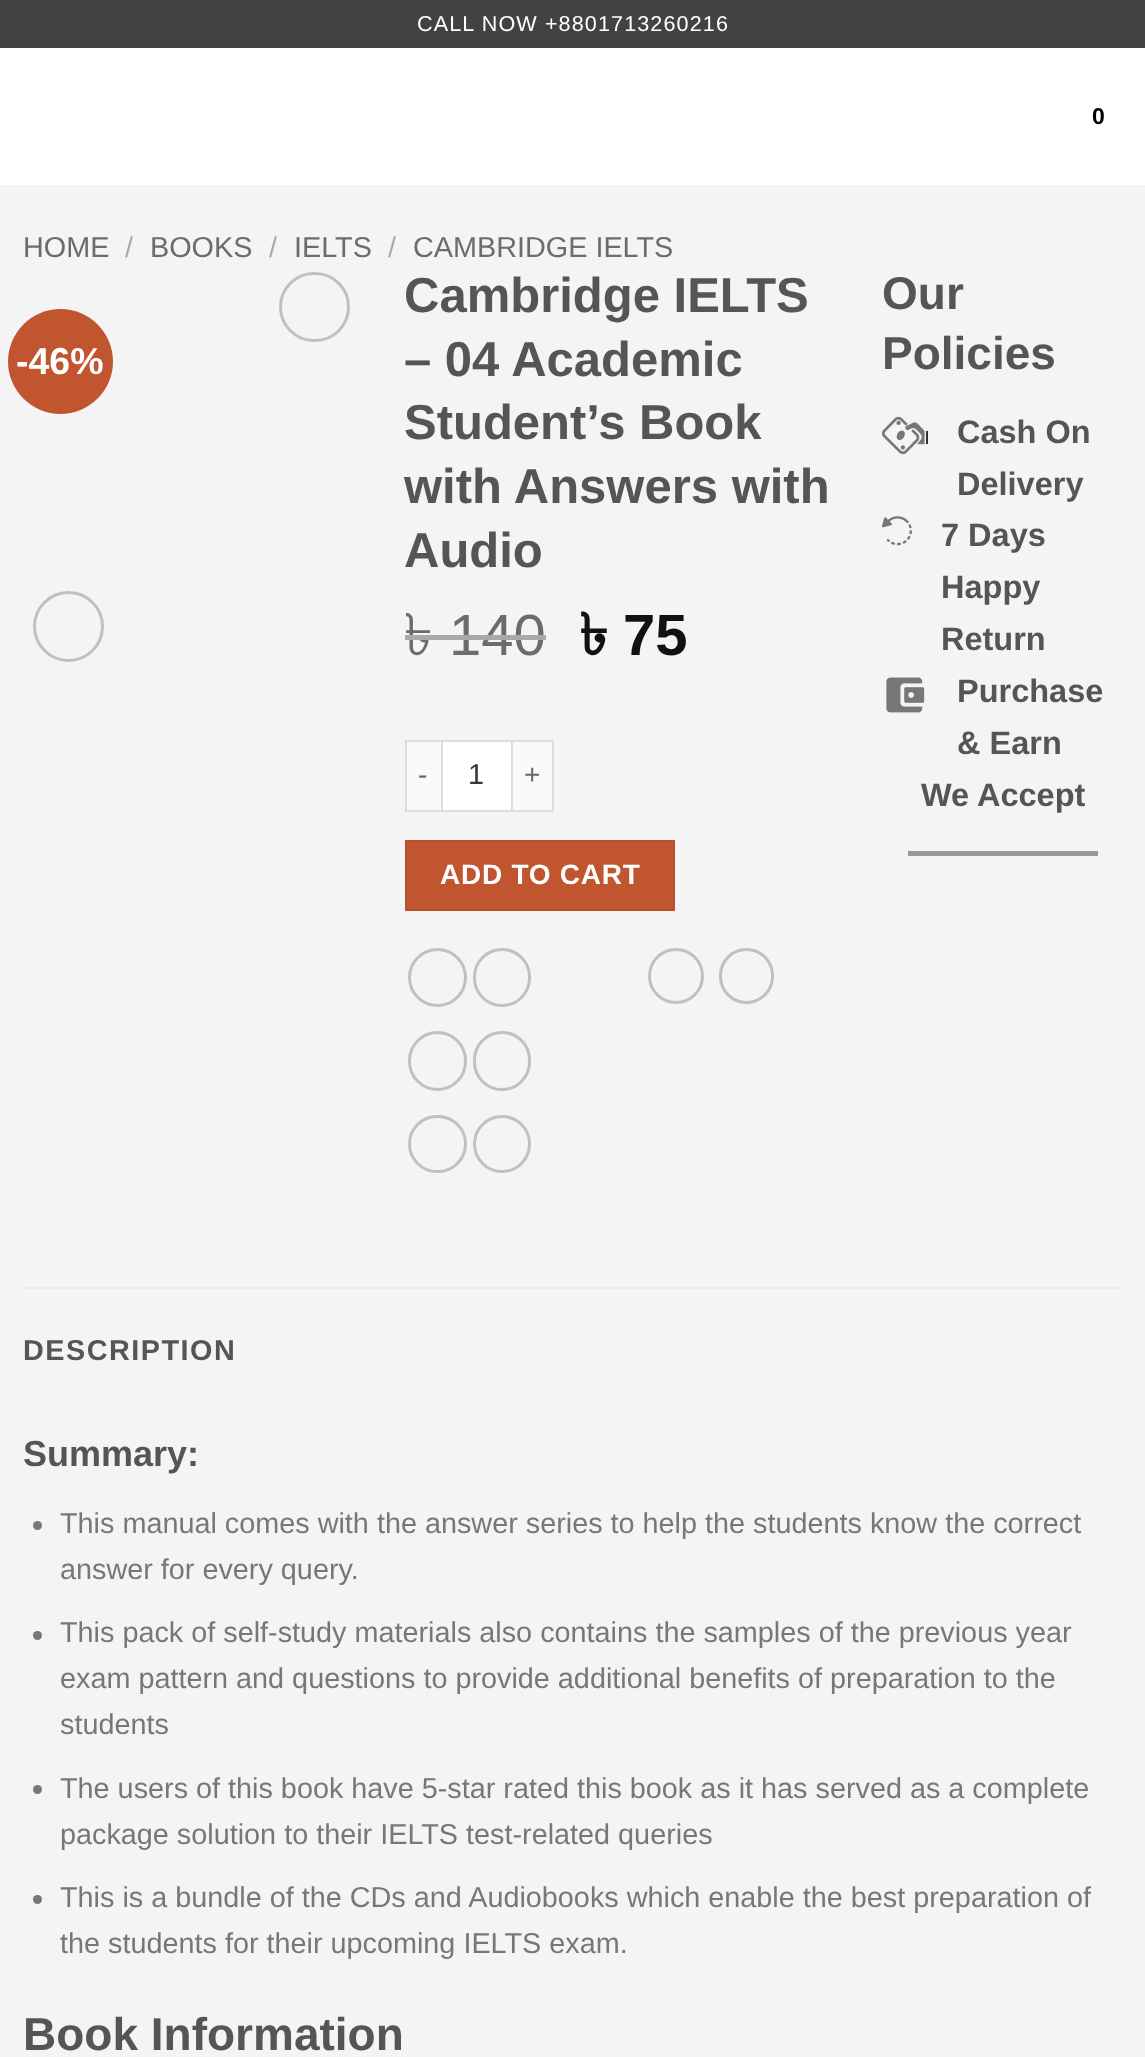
<?xml version="1.0" encoding="UTF-8"?>
<svg xmlns="http://www.w3.org/2000/svg" width="1145" height="2057">
    <rect width="100%" height="100%" fill="#FFFFFF"/>
    <rect x="0" y="0" width="1145" height="48" fill="#424242"/>
    <text x="417" y="31" font-family="Liberation Sans" font-size="21.6" letter-spacing="1.1" fill="#FFFFFF">CALL NOW +8801713260216</text>
    <text x="1092" y="124" font-family="Liberation Sans" font-size="23" font-weight="700" fill="#000000">0</text>
    <rect x="0" y="185" width="1145" height="1872" fill="#F4F4F4"/>
    <text x="23" y="257" font-family="Liberation Sans" font-size="28.8" fill="#6C6C6C">HOME</text>
    <text x="125" y="257" font-family="Liberation Sans" font-size="28.8" fill="#AAAAAA">/</text>
    <text x="150" y="257" font-family="Liberation Sans" font-size="28.8" fill="#6C6C6C">BOOKS</text>
    <text x="269" y="257" font-family="Liberation Sans" font-size="28.8" fill="#AAAAAA">/</text>
    <text x="294" y="257" font-family="Liberation Sans" font-size="28.8" fill="#6C6C6C">IELTS</text>
    <text x="388" y="257" font-family="Liberation Sans" font-size="28.8" fill="#AAAAAA">/</text>
    <text x="413" y="257" font-family="Liberation Sans" font-size="28.8" fill="#6C6C6C">CAMBRIDGE IELTS</text>
    <rect x="280.5" y="273.5" width="68" height="67" rx="33.5" fill="none" stroke="#C0C0C0" stroke-width="3"/>
    <circle cx="60.5" cy="361.5" r="52.5" fill="#C05530"/>
    <text x="16" y="374" font-family="Liberation Sans" font-size="37.5" font-weight="700" fill="#FFFFFF">-46%</text>
    <circle cx="68.5" cy="626.5" r="34" fill="none" stroke="#C0C0C0" stroke-width="3"/>
    <text font-family="Liberation Sans" font-size="49" font-weight="700" fill="#555555">
        <tspan x="404" y="312">Cambridge IELTS</tspan>
        <tspan x="404" y="376">– 04 Academic</tspan>
        <tspan x="404" y="439">Student’s Book</tspan>
        <tspan x="404" y="503">with Answers with</tspan>
        <tspan x="404" y="567">Audio</tspan>
    </text>
    <text x="404" y="655" font-family="Lohit Bengali" font-size="58" fill="#6C6C6C">৳</text>
    <rect x="405" y="635" width="44" height="5" fill="#A9A9A9"/>
    <text x="449" y="655" font-family="Liberation Sans" font-size="58" fill="#6C6C6C">140</text>
    <rect x="449" y="635" width="97" height="5" fill="#A9A9A9"/>
    <text x="579" y="655" font-family="Lohit Bengali" font-size="58" font-weight="700" fill="#111111">৳</text>
    <text x="623" y="655" font-family="Liberation Sans" font-size="58" font-weight="700" fill="#111111">75</text>
    <rect x="407" y="742" width="34" height="68" fill="#F9F9F9"/>
    <rect x="405" y="740" width="36" height="2" fill="#DDDDDD"/>
    <rect x="405" y="810" width="36" height="2" fill="#DDDDDD"/>
    <rect x="405" y="740" width="2" height="72" fill="#DDDDDD"/>
    <text x="418" y="784" font-family="Liberation Sans" font-size="28" letter-spacing="0.75" fill="#666666">-</text>
    <rect x="442" y="741" width="70" height="70" fill="#FFFFFF" stroke="#DDDDDD" stroke-width="2"/>
    <text x="468" y="784" font-family="Liberation Sans" font-size="28.8" fill="#333333">1</text>
    <rect x="513" y="742" width="39" height="68" fill="#F9F9F9"/>
    <rect x="513" y="740" width="41" height="2" fill="#DDDDDD"/>
    <rect x="552" y="740" width="2" height="72" fill="#DDDDDD"/>
    <rect x="513" y="810" width="41" height="2" fill="#DDDDDD"/>
    <text x="524" y="784" font-family="Liberation Sans" font-size="28" letter-spacing="0.75" fill="#666666">+</text>
    <rect x="406" y="841" width="268" height="69" fill="#C05530" stroke="#B6512E" stroke-width="2"/>
    <text x="440" y="884" font-family="Liberation Sans" font-size="28" font-weight="700" letter-spacing="0.75" fill="#FFFFFF">ADD TO CART</text>
    <circle cx="437.5" cy="977.5" r="28" fill="none" stroke="#C0C0C0" stroke-width="3"/>
    <rect x="474.5" y="949.5" width="55" height="56" rx="27.5" fill="none" stroke="#C0C0C0" stroke-width="3"/>
    <rect x="409.5" y="1032.5" width="56" height="57" rx="28" fill="none" stroke="#C0C0C0" stroke-width="3"/>
    <rect x="474.5" y="1032.5" width="55" height="57" rx="27.5" fill="none" stroke="#C0C0C0" stroke-width="3"/>
    <rect x="409.5" y="1116.5" width="56" height="55" rx="27.5" fill="none" stroke="#C0C0C0" stroke-width="3"/>
    <circle cx="502" cy="1144" r="27.5" fill="none" stroke="#C0C0C0" stroke-width="3"/>
    <circle cx="676" cy="976" r="26.5" fill="none" stroke="#C0C0C0" stroke-width="3"/>
    <rect x="720.5" y="949.5" width="52" height="53" rx="26" fill="none" stroke="#C0C0C0" stroke-width="3"/>
    <text font-family="Liberation Sans" font-size="46" font-weight="700" fill="#555555">
        <tspan x="882" y="309">Our</tspan>
        <tspan x="882" y="369">Policies</tspan>
    </text>
    <image x="882" y="416" width="46" height="39" href="img_01.png"/>
    <text font-family="Liberation Sans" font-size="32.5" font-weight="700" fill="#555555">
        <tspan x="957" y="443">Cash On</tspan>
        <tspan x="957" y="495">Delivery</tspan>
    </text>
    <image x="882" y="516" width="30" height="30" href="img_02.png"/>
    <text font-family="Liberation Sans" font-size="32.5" font-weight="700" fill="#555555">
        <tspan x="941" y="546">7 Days</tspan>
        <tspan x="941" y="598">Happy</tspan>
        <tspan x="941" y="650">Return</tspan>
    </text>
    <image x="886" y="677" width="39" height="36" href="img_03.png"/>
    <text font-family="Liberation Sans" font-size="32.5" font-weight="700" fill="#555555">
        <tspan x="957" y="702">Purchase</tspan>
        <tspan x="957" y="754">&amp; Earn</tspan>
    </text>
    <text x="921" y="806" font-family="Liberation Sans" font-size="32.5" font-weight="700" fill="#555555">We Accept</text>
    <rect x="908" y="851" width="190" height="5" fill="#999797"/>
    <rect x="23" y="1287" width="1101" height="2" fill="#ECECEC"/>
    <text x="23" y="1360" font-family="Liberation Sans" font-size="28.8" font-weight="700" letter-spacing="1.5" fill="#555555">DESCRIPTION</text>
    <text x="23" y="1466" font-family="Liberation Sans" font-size="36" font-weight="700" fill="#555555">Summary:</text>
    <circle cx="37.5" cy="1525.5" r="4.5" fill="#777777"/>
    <text font-family="Liberation Sans" font-size="28.8" fill="#777777">
        <tspan x="60" y="1533">This manual comes with the answer series to help the students know the correct</tspan>
        <tspan x="60" y="1579">answer for every query.</tspan>
    </text>
    <circle cx="37.5" cy="1635.5" r="4.5" fill="#777777"/>
    <text font-family="Liberation Sans" font-size="28.8" fill="#777777">
        <tspan x="60" y="1642">This pack of self-study materials also contains the samples of the previous year</tspan>
        <tspan x="60" y="1688">exam pattern and questions to provide additional benefits of preparation to the</tspan>
        <tspan x="60" y="1734">students</tspan>
    </text>
    <circle cx="37.5" cy="1789.5" r="4.5" fill="#777777"/>
    <text font-family="Liberation Sans" font-size="28.8" fill="#777777">
        <tspan x="60" y="1798">The users of this book have 5-star rated this book as it has served as a complete</tspan>
        <tspan x="60" y="1844">package solution to their IELTS test-related queries</tspan>
    </text>
    <circle cx="37.5" cy="1899.5" r="4.5" fill="#777777"/>
    <text font-family="Liberation Sans" font-size="28.8" fill="#777777">
        <tspan x="60" y="1907">This is a bundle of the CDs and Audiobooks which enable the best preparation of</tspan>
        <tspan x="60" y="1953">the students for their upcoming IELTS exam.</tspan>
    </text>
    <text x="23" y="2050" font-family="Liberation Sans" font-size="46" font-weight="700" fill="#555555">Book Information</text>
</svg>
